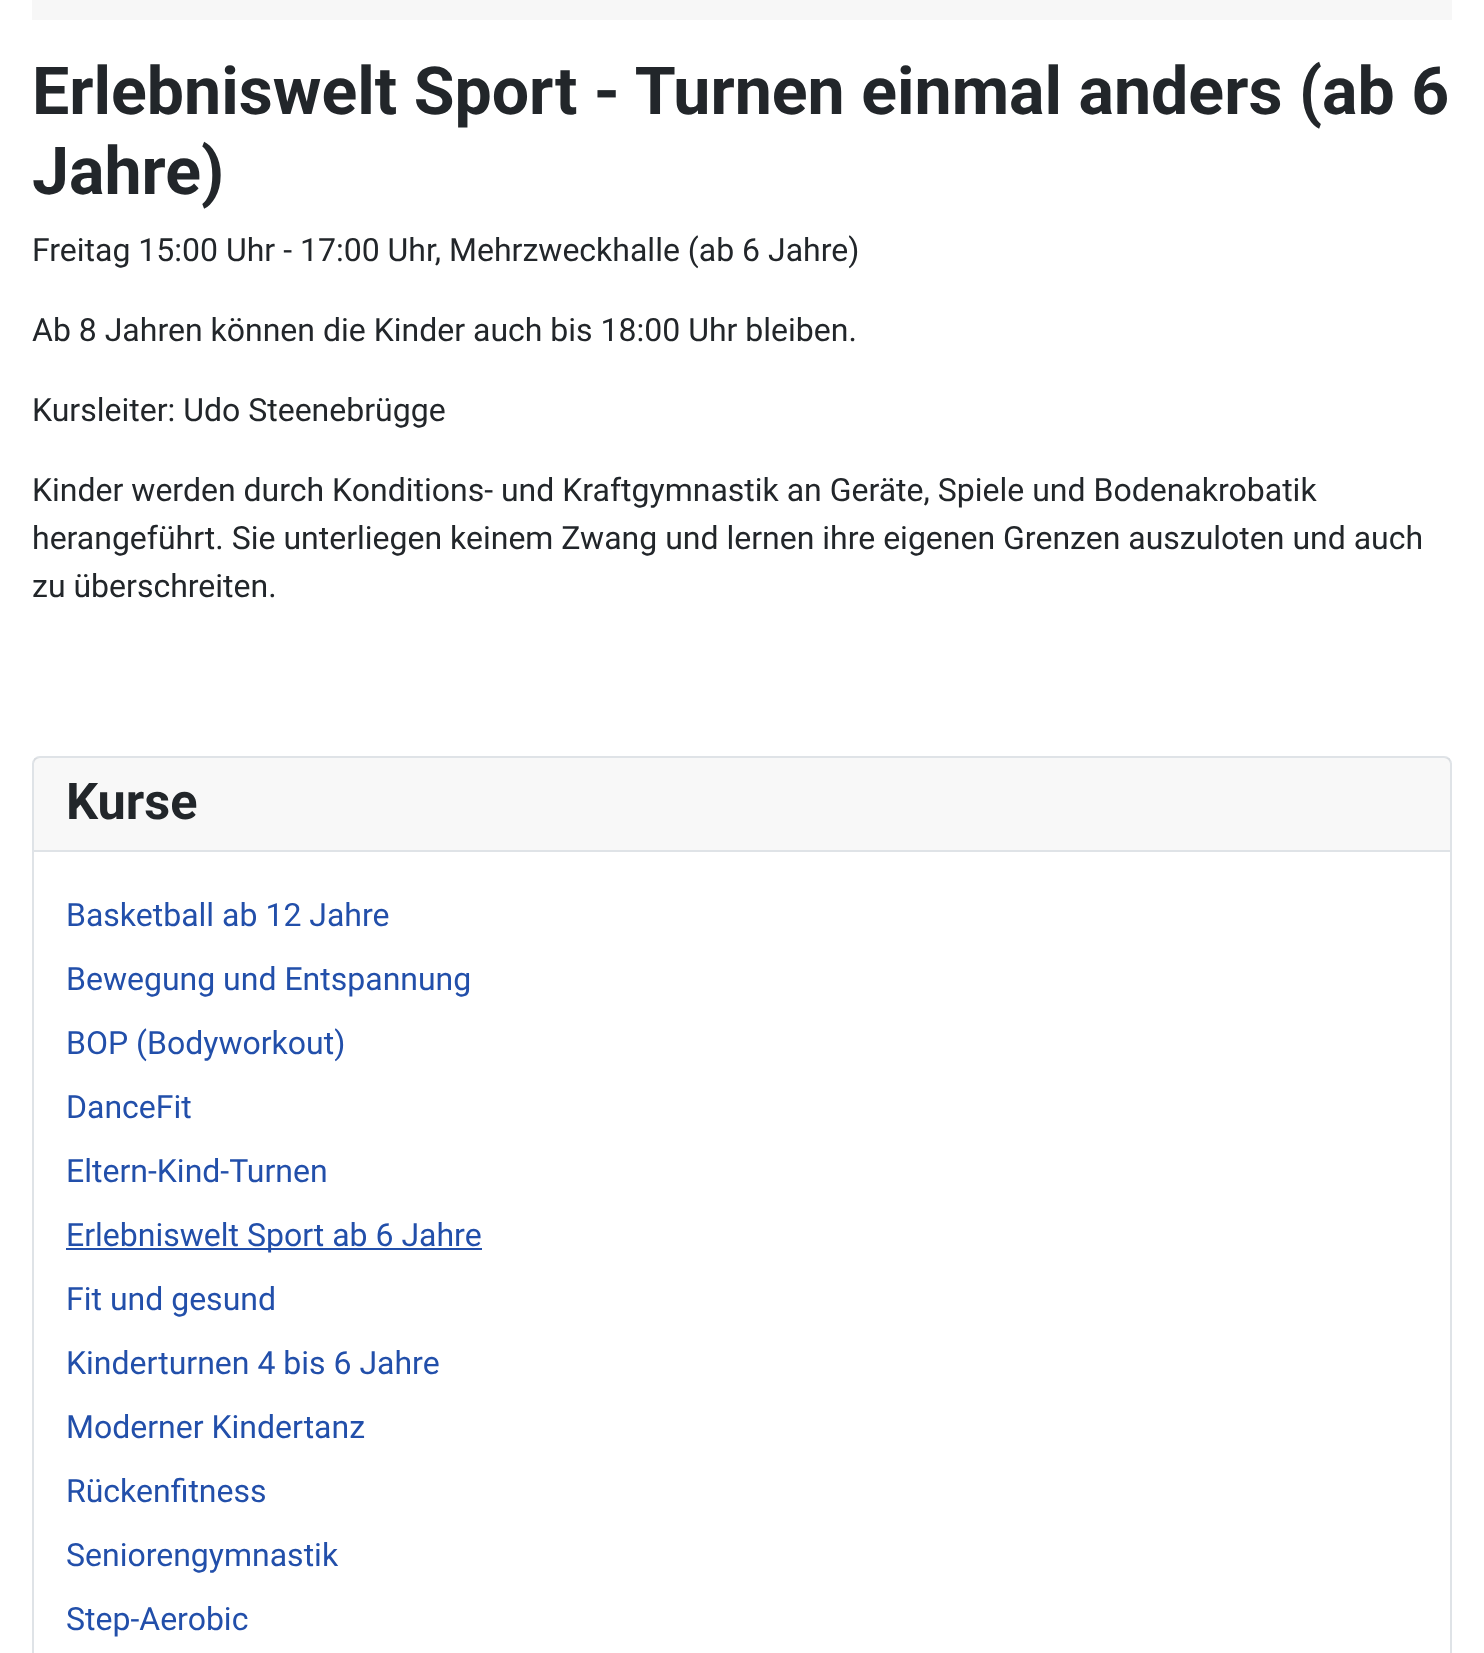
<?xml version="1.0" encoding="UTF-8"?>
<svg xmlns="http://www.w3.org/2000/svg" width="1484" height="1653">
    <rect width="100%" height="100%" fill="#FFFFFF"/>
    <rect x="32" y="0" width="1420" height="20" fill="#F7F7F7"/>
    <text font-family="Roboto" font-size="66.25" font-weight="700" fill="#22262A">
        <tspan x="32" y="114">Erlebniswelt Sport - Turnen einmal anders (ab 6</tspan>
        <tspan x="32" y="194">Jahre)</tspan>
    </text>
    <text x="32" y="261" font-family="Roboto" font-size="32" fill="#22262A">Freitag 15:00 Uhr - 17:00 Uhr, Mehrzweckhalle (ab 6 Jahre)</text>
    <text x="32" y="341" font-family="Roboto" font-size="32" fill="#22262A">Ab 8 Jahren können die Kinder auch bis 18:00 Uhr bleiben.</text>
    <text x="32" y="421" font-family="Roboto" font-size="32" fill="#22262A">Kursleiter: Udo Steenebrügge</text>
    <text font-family="Roboto" font-size="32" fill="#22262A">
        <tspan x="32" y="501">Kinder werden durch Konditions- und Kraftgymnastik an Geräte, Spiele und Bodenakrobatik</tspan>
        <tspan x="32" y="549">herangeführt. Sie unterliegen keinem Zwang und lernen ihre eigenen Grenzen auszuloten und auch</tspan>
        <tspan x="32" y="597">zu überschreiten.</tspan>
    </text>
    <rect x="33" y="757" width="1418" height="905" rx="7" fill="none" stroke="#DFE3E7" stroke-width="2"/>
    <rect x="34" y="758" width="1416" height="92" fill="#22262A" fill-opacity="0.03"/>
    <rect x="34" y="850" width="1416" height="2" fill="#DFE3E7"/>
    <text x="66" y="819" font-family="Roboto" font-size="50.5" font-weight="700" fill="#22262A">Kurse</text>
    <text x="66" y="926" font-family="Roboto" font-size="32" fill="#224FAA">Basketball ab 12 Jahre</text>
    <text x="66" y="990" font-family="Roboto" font-size="32" fill="#224FAA">Bewegung und Entspannung</text>
    <text x="66" y="1054" font-family="Roboto" font-size="32" fill="#224FAA">BOP (Bodyworkout)</text>
    <text x="66" y="1118" font-family="Roboto" font-size="32" fill="#224FAA">DanceFit</text>
    <text x="66" y="1182" font-family="Roboto" font-size="32" fill="#224FAA">Eltern-Kind-Turnen</text>
    <rect x="66" y="1248" width="416" height="2" fill="#224FAA"/>
    <text x="66" y="1246" font-family="Roboto" font-size="32" fill="#224FAA">Erlebniswelt Sport ab 6 Jahre</text>
    <text x="66" y="1310" font-family="Roboto" font-size="32" fill="#224FAA">Fit und gesund</text>
    <text x="66" y="1374" font-family="Roboto" font-size="32" fill="#224FAA">Kinderturnen 4 bis 6 Jahre</text>
    <text x="66" y="1438" font-family="Roboto" font-size="32" fill="#224FAA">Moderner Kindertanz</text>
    <text x="66" y="1502" font-family="Roboto" font-size="32" fill="#224FAA">Rückenfitness</text>
    <text x="66" y="1566" font-family="Roboto" font-size="32" fill="#224FAA">Seniorengymnastik</text>
    <text x="66" y="1630" font-family="Roboto" font-size="32" fill="#224FAA">Step-Aerobic</text>
</svg>
